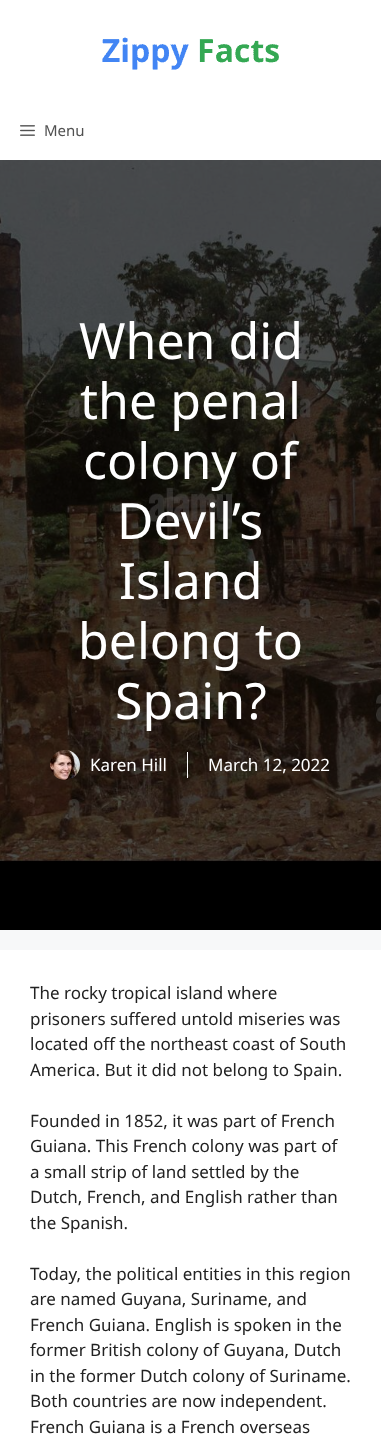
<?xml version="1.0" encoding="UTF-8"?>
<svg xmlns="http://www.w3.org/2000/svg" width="381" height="1452">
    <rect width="100%" height="100%" fill="#F7F8F9"/>
    <rect x="0" y="0" width="381" height="160" fill="#FFFFFF"/>
    <image x="102" y="37" width="177" height="33" href="img_01.png"/>
    <image x="20" y="125" width="15" height="11" href="img_02.png"/>
    <text x="44" y="136" font-family="Noto Sans" font-size="15" fill="#515151">Menu</text>
    <rect x="0" y="160" width="381" height="770" fill="#000000"/>
    <image x="0" y="160" width="381" height="702" href="img_03.png"/>
    <text x="79" y="359" font-family="Noto Sans" font-size="50" fill="#FFFFFF">When did</text>
    <text x="80" y="419" font-family="Noto Sans" font-size="50" fill="#FFFFFF">the penal</text>
    <text x="83" y="479" font-family="Noto Sans" font-size="50" fill="#FFFFFF">colony of</text>
    <text x="117" y="539" font-family="Noto Sans" font-size="50" fill="#FFFFFF">Devil’s</text>
    <text x="119" y="599" font-family="Noto Sans" font-size="50" fill="#FFFFFF">Island</text>
    <text x="78" y="659" font-family="Noto Sans" font-size="50" fill="#FFFFFF">belong to</text>
    <text x="115" y="719" font-family="Noto Sans" font-size="50" fill="#FFFFFF">Spain?</text>
    <image x="50" y="750" width="30" height="30" href="img_04.png"/>
    <text x="90" y="771" font-family="Noto Sans" font-size="17" fill="#FFFFFF">Karen Hill</text>
    <rect x="187" y="752" width="1" height="26" fill="#FFFFFF"/>
    <text x="208" y="771" font-family="Noto Sans" font-size="17" fill="#FFFFFF">March 12, 2022</text>
    <rect x="0" y="950" width="381" height="502" fill="#FFFFFF"/>
    <text font-family="Noto Sans" font-size="17" fill="#222222">
        <tspan x="30" y="999">The rocky tropical island where</tspan>
        <tspan x="30" y="1025">prisoners suffered untold miseries was</tspan>
        <tspan x="30" y="1050">located off the northeast coast of South</tspan>
        <tspan x="30" y="1076">America. But it did not belong to Spain.</tspan>
    </text>
    <text font-family="Noto Sans" font-size="17" fill="#222222">
        <tspan x="30" y="1127">Founded in 1852, it was part of French</tspan>
        <tspan x="30" y="1152">Guiana. This French colony was part of</tspan>
        <tspan x="30" y="1178">a small strip of land settled by the</tspan>
        <tspan x="30" y="1203">Dutch, French, and English rather than</tspan>
        <tspan x="30" y="1229">the Spanish.</tspan>
    </text>
    <text font-family="Noto Sans" font-size="17" fill="#222222">
        <tspan x="30" y="1280">Today, the political entities in this region</tspan>
        <tspan x="30" y="1305">are named Guyana, Suriname, and</tspan>
        <tspan x="30" y="1331">French Guiana. English is spoken in the</tspan>
        <tspan x="30" y="1356">former British colony of Guyana, Dutch</tspan>
        <tspan x="30" y="1382">in the former Dutch colony of Suriname.</tspan>
        <tspan x="30" y="1407">Both countries are now independent.</tspan>
        <tspan x="30" y="1433">French Guiana is a French overseas</tspan>
    </text>
</svg>
